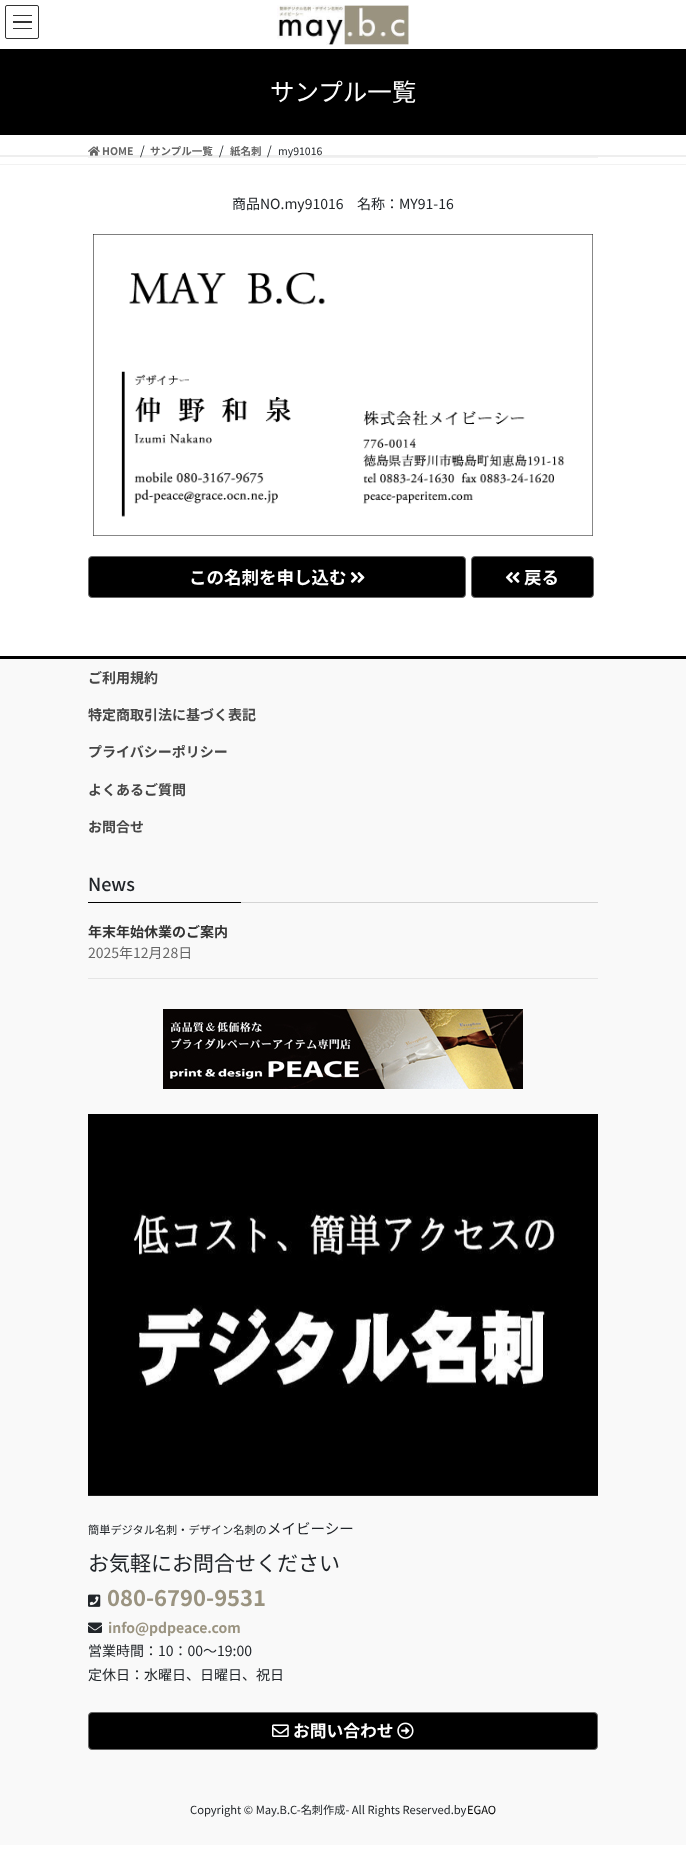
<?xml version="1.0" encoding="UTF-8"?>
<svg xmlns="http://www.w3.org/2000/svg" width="686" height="1865">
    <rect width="100%" height="100%" fill="#FFFFFF"/>
    <rect x="13" y="15" width="19" height="1" fill="#333333"/>
    <rect x="13" y="21" width="19" height="2" fill="#333333"/>
    <rect x="13" y="28" width="19" height="1" fill="#333333"/>
    <rect x="5.5" y="5.5" width="33" height="33" rx="1.5" fill="none" stroke="#333333"/>
    <image x="277" y="5" width="132" height="40" href="img_01.png"/>
    <rect x="0" y="49" width="686" height="86" fill="#000000"/>
    <text x="270" y="101" font-family="Noto Sans JP" font-size="24.5" fill="#FFFFFF">サンプル一覧</text>
    <rect x="0" y="164" width="686" height="1" fill="#F2F2F2"/>
    <rect x="0" y="155" width="686" height="2" fill="#EEEEEE"/>
    <image x="88" y="146" width="12" height="10" href="img_02.png"/>
    <text x="102" y="155" font-family="Noto Sans JP" font-size="10.5" font-weight="700" fill="#666666">HOME</text>
    <text x="140" y="155" font-family="Noto Sans JP" font-size="12" fill="#212529">/</text>
    <text x="150" y="155" font-family="Noto Sans JP" font-size="10.5" font-weight="700" fill="#666666">サンプル一覧</text>
    <text x="219" y="155" font-family="Noto Sans JP" font-size="12" fill="#212529">/</text>
    <text x="230" y="155" font-family="Noto Sans JP" font-size="10.5" font-weight="700" fill="#666666">紙名刺</text>
    <text x="267" y="155" font-family="Noto Sans JP" font-size="12" fill="#212529">/</text>
    <text x="278" y="155" font-family="Noto Sans JP" font-size="10.5" fill="#212529">my91016</text>
    <rect x="88" y="157" width="510" height="1" fill="#000000" fill-opacity="0.05"/>
    <text x="232" y="209" font-family="Noto Sans JP" font-size="14" fill="#212529">商品NO.my91016</text>
    <text x="357" y="209" font-family="Noto Sans JP" font-size="14" fill="#212529">名称：MY91-16</text>
    <image x="93" y="234" width="500" height="302" href="img_03.png"/>
    <rect x="88.5" y="556.5" width="377" height="41" rx="3.5" fill="#000000" stroke="#666666"/>
    <text x="189" y="584" font-family="Noto Sans JP" font-size="17.5" font-weight="700" fill="#FFFFFF">この名刺を申し込む</text>
    <image x="350" y="572" width="15" height="11" href="img_04.png"/>
    <rect x="471.5" y="556.5" width="122" height="41" rx="3.5" fill="#000000" stroke="#666666"/>
    <image x="505" y="572" width="15" height="11" href="img_05.png"/>
    <text x="524" y="584" font-family="Noto Sans JP" font-size="17.5" font-weight="700" fill="#FFFFFF">戻る</text>
    <rect x="0" y="659" width="686" height="1186" fill="#F9F9F9"/>
    <rect x="0" y="656" width="686" height="3" fill="#000000"/>
    <text x="88" y="683" font-family="Noto Sans JP" font-size="14" font-weight="700" fill="#464646">ご利用規約</text>
    <text x="88" y="720" font-family="Noto Sans JP" font-size="14" font-weight="700" fill="#464646">特定商取引法に基づく表記</text>
    <text x="88" y="757" font-family="Noto Sans JP" font-size="14" font-weight="700" fill="#464646">プライバシーポリシー</text>
    <text x="88" y="795" font-family="Noto Sans JP" font-size="14" font-weight="700" fill="#464646">よくあるご質問</text>
    <text x="88" y="832" font-family="Noto Sans JP" font-size="14" font-weight="700" fill="#464646">お問合せ</text>
    <rect x="241" y="902" width="357" height="1" fill="#D4D4D4"/>
    <text x="88" y="891" font-family="Noto Sans JP" font-size="18" font-weight="500" fill="#212529">News</text>
    <rect x="88" y="902" width="153" height="1" fill="#000000"/>
    <rect x="88" y="978" width="510" height="1" fill="#E5E5E5"/>
    <text x="88" y="937" font-family="Noto Sans JP" font-size="14" font-weight="700" fill="#333333">年末年始休業のご案内</text>
    <text x="88" y="958" font-family="Noto Sans JP" font-size="14" fill="#666666">2025年12月28日</text>
    <image x="163" y="1009" width="360" height="80" href="img_06.png"/>
    <image x="88" y="1114" width="510" height="382" href="img_07.png"/>
    <text x="88" y="1534" font-family="Noto Sans JP" font-size="11.2" fill="#212529">簡単デジタル名刺・デザイン名刺の</text>
    <text x="267" y="1534" font-family="Noto Sans JP" font-size="14.5" fill="#212529">メイビーシー</text>
    <text x="88" y="1571" font-family="Noto Sans JP" font-size="21" fill="#212529">お気軽にお問合せください</text>
    <image x="88" y="1594" width="13" height="13" href="img_08.png"/>
    <text x="107" y="1606" font-family="Noto Sans JP" font-size="22" font-weight="700" fill="#9A9380">080-6790-9531</text>
    <image x="88" y="1622" width="14" height="11" href="img_09.png"/>
    <text x="108" y="1633" font-family="Noto Sans JP" font-size="14" font-weight="700" fill="#9A9380">info@pdpeace.com</text>
    <text font-family="Noto Sans JP" font-size="14" fill="#212529">
        <tspan x="88" y="1656">営業時間：10：00～19:00</tspan>
        <tspan x="88" y="1680">定休日：水曜日、日曜日、祝日</tspan>
    </text>
    <rect x="88.5" y="1712.5" width="509" height="37" rx="3.5" fill="#000000" stroke="#666666"/>
    <image x="272" y="1724" width="17" height="13" href="img_10.png"/>
    <text x="293" y="1737" font-family="Noto Sans JP" font-size="16.75" font-weight="700" fill="#FFFFFF">お問い合わせ</text>
    <image x="397" y="1722" width="17" height="17" href="img_11.png"/>
    <text x="190" y="1814" font-family="Noto Sans JP" font-size="11.2" fill="#212529">Copyright © May.B.C-名刺作成- All Rights Reserved.by</text>
    <text x="467" y="1814" font-family="Noto Sans JP" font-size="11.2" fill="#000000">EGAO</text>
</svg>
